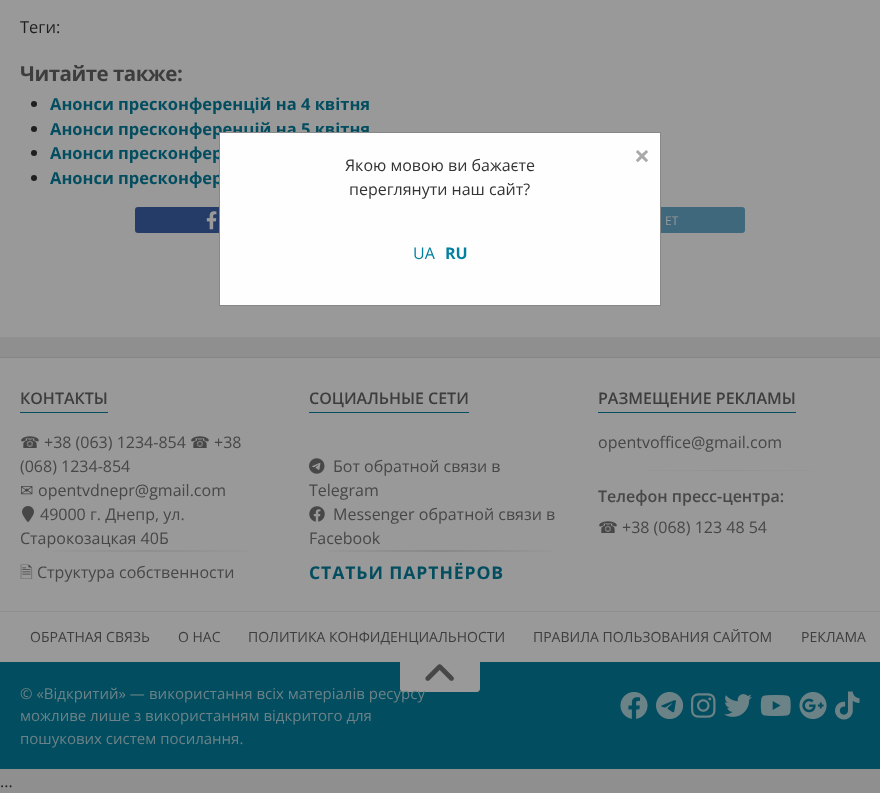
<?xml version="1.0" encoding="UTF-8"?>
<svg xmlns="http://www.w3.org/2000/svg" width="880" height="793">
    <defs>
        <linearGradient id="g1" gradientUnits="userSpaceOnUse" x1="20" y1="551" x2="282" y2="551"><stop offset="0" stop-color="#999999"/><stop offset="0.5" stop-color="#8F8F8F"/><stop offset="1" stop-color="#999999"/></linearGradient>
        <linearGradient id="g2" gradientUnits="userSpaceOnUse" x1="309" y1="551" x2="571" y2="551"><stop offset="0" stop-color="#999999"/><stop offset="0.5" stop-color="#888888"/><stop offset="1" stop-color="#999999"/></linearGradient>
        <linearGradient id="g3" gradientUnits="userSpaceOnUse" x1="598" y1="471" x2="860" y2="471"><stop offset="0" stop-color="#999999"/><stop offset="0.5" stop-color="#929292"/><stop offset="1" stop-color="#999999"/></linearGradient>
    </defs>
    <rect width="100%" height="100%" fill="#8F8F8F"/>
    <rect x="0" y="0" width="880" height="337" fill="#999999"/>
    <text x="20" y="33" font-family="Open Sans" font-size="16.5" fill="#1F1F1F">Теги:</text>
    <text x="20" y="81" font-family="Open Sans" font-size="20.5" font-weight="700" letter-spacing="-0.5" fill="#3D3D3D">Читайте также:</text>
    <circle cx="34" cy="104" r="3" fill="#1F1F1F"/>
    <text x="50" y="110" font-family="Open Sans" font-size="16.5" font-weight="700" fill="#024D5F">Анонси пресконференцій на 4 квітня</text>
    <circle cx="34" cy="129" r="3" fill="#1F1F1F"/>
    <text x="50" y="135" font-family="Open Sans" font-size="16.5" font-weight="700" fill="#024D5F">Анонси пресконференцій на 5 квітня</text>
    <circle cx="34" cy="153" r="3" fill="#1F1F1F"/>
    <text x="50" y="159" font-family="Open Sans" font-size="16.5" font-weight="700" fill="#024D5F">Анонси пресконфер</text>
    <circle cx="34" cy="178" r="3" fill="#1F1F1F"/>
    <text x="50" y="184" font-family="Open Sans" font-size="16.5" font-weight="700" fill="#024D5F">Анонси пресконфер</text>
    <rect x="135" y="207" width="200" height="26" rx="3" fill="#253C68"/>
    <image x="206" y="211" width="11" height="19" href="img_01.png"/>
    <rect x="545" y="207" width="200" height="26" rx="3" fill="#40687D"/>
    <text x="665" y="225" font-family="Open Sans" font-size="12" fill="#999999">ET</text>
    <rect x="0" y="358" width="880" height="304" fill="#999999"/>
    <rect x="0" y="357" width="880" height="1" fill="#858585"/>
    <rect x="20" y="412" width="88" height="1" fill="#024D5F"/>
    <text x="20" y="404" font-family="Open Sans" font-size="16" font-weight="600" fill="#3D3D3D">КОНТАКТЫ</text>
    <text x="20" y="448" font-family="DejaVu Sans" font-size="16" fill="#474747">☎</text>
    <text x="44" y="448" font-family="Open Sans" font-size="16" fill="#474747">+38 (063) 1234-854</text>
    <text x="190" y="448" font-family="DejaVu Sans" font-size="16" fill="#474747">☎</text>
    <text x="214" y="448" font-family="Open Sans" font-size="16" fill="#474747">+38</text>
    <text x="20" y="472" font-family="Open Sans" font-size="16" fill="#474747">(068) 1234-854</text>
    <text x="20" y="496" font-family="DejaVu Sans" font-size="16" fill="#474747">✉</text>
    <text x="38" y="496" font-family="Open Sans" font-size="16" fill="#474747">opentvdnepr@gmail.com</text>
    <image x="22" y="506" width="12" height="16" href="img_02.png"/>
    <text x="40" y="520" font-family="Open Sans" font-size="16" fill="#474747">49000 г. Днепр, ул.</text>
    <text x="20" y="544" font-family="Open Sans" font-size="16" fill="#474747">Старокозацкая 40Б</text>
    <rect x="53" y="550" width="196" height="2" fill="url(#g1)"/>
    <text x="20" y="578" font-family="'Noto Sans Symbols 2'" font-size="16" fill="#474747">🗎</text>
    <text x="37" y="578" font-family="Open Sans" font-size="16" fill="#474747">Структура собственности</text>
    <rect x="309" y="412" width="160" height="1" fill="#024D5F"/>
    <text x="309" y="404" font-family="Open Sans" font-size="16" font-weight="600" fill="#3D3D3D">СОЦИАЛЬНЫЕ СЕТИ</text>
    <image x="309" y="458" width="16" height="16" href="img_03.png"/>
    <text x="333" y="472" font-family="Open Sans" font-size="16" fill="#474747">Бот обратной связи в</text>
    <text x="309" y="496" font-family="Open Sans" font-size="16" fill="#474747">Telegram</text>
    <image x="309" y="506" width="16" height="16" href="img_04.png"/>
    <text x="333" y="520" font-family="Open Sans" font-size="16" fill="#474747">Messenger обратной связи в</text>
    <text x="309" y="544" font-family="Open Sans" font-size="16" fill="#474747">Facebook</text>
    <rect x="328" y="550" width="224" height="2" fill="url(#g2)"/>
    <text x="309" y="579" font-family="Open Sans" font-size="17.6" font-weight="700" letter-spacing="0.9" fill="#024D5F">СТАТЬИ ПАРТНЁРОВ</text>
    <rect x="598" y="412" width="198" height="1" fill="#024D5F"/>
    <text x="598" y="404" font-family="Open Sans" font-size="16" font-weight="600" fill="#3D3D3D">РАЗМЕЩЕНИЕ РЕКЛАМЫ</text>
    <text x="598" y="448" font-family="Open Sans" font-size="16" fill="#474747">opentvoffice@gmail.com</text>
    <rect x="645" y="470" width="168" height="1" fill="url(#g3)"/>
    <text x="598" y="502" font-family="Open Sans" font-size="16" font-weight="600" fill="#474747">Телефон пресс-центра:</text>
    <text x="598" y="533" font-family="DejaVu Sans" font-size="16" fill="#474747">☎</text>
    <text x="622" y="533" font-family="Open Sans" font-size="16" fill="#474747">+38 (068) 123 48 54</text>
    <rect x="0" y="611" width="880" height="1" fill="#8F8F8F"/>
    <text x="30" y="642" font-family="Open Sans" font-size="14" fill="#3D3D3D">ОБРАТНАЯ СВЯЗЬ</text>
    <text x="178" y="642" font-family="Open Sans" font-size="14" fill="#3D3D3D">О НАС</text>
    <text x="248" y="642" font-family="Open Sans" font-size="14" fill="#3D3D3D">ПОЛИТИКА КОНФИДЕНЦИАЛЬНОСТИ</text>
    <text x="533" y="642" font-family="Open Sans" font-size="14" fill="#3D3D3D">ПРАВИЛА ПОЛЬЗОВАНИЯ САЙТОМ</text>
    <text x="801" y="642" font-family="Open Sans" font-size="14" fill="#3D3D3D">РЕКЛАМА</text>
    <rect x="0" y="662" width="880" height="107" fill="#024D5F"/>
    <path d="M 400 662 H 480 V 689 C 480 690.5 478.5 692 477 692 H 403 C 401.5 692 400 690.5 400 689 Z" fill="#999999"/>
    <image x="425" y="664" width="29" height="17" href="img_05.png"/>
    <text x="20" y="699" font-family="Open Sans" font-size="15" fill="#6B8288">© «Відкритий» —</text>
    <text x="149" y="699" font-family="Open Sans" font-size="15" fill="#6B8288">використання всіх матеріалів ресурсу</text>
    <text font-family="Open Sans" font-size="15" fill="#6B8288">
        <tspan x="20" y="721">можливе лише з використанням відкритого для</tspan>
        <tspan x="20" y="744">пошукових систем посилання.</tspan>
    </text>
    <image x="620" y="692" width="28" height="27" href="img_06.png"/>
    <image x="656" y="691" width="28" height="29" href="img_07.png"/>
    <image x="691" y="693" width="25" height="25" href="img_08.png"/>
    <image x="724" y="694" width="28" height="23" href="img_09.png"/>
    <image x="760" y="695" width="31" height="21" href="img_10.png"/>
    <image x="799" y="692" width="28" height="27" href="img_11.png"/>
    <image x="835" y="691" width="25" height="29" href="img_12.png"/>
    <rect x="219.5" y="132.5" width="441" height="173" fill="#FEFEFE" stroke="#888888"/>
    <text x="634" y="166" font-family="Open Sans" font-size="28" font-weight="700" fill="#AAAAAA">×</text>
    <text x="345" y="171" font-family="Open Sans" font-size="16" fill="#333333">Якою мовою ви бажаєте</text>
    <text x="349" y="195" font-family="Open Sans" font-size="16" fill="#333333">переглянути наш сайт?</text>
    <text x="413" y="259" font-family="Open Sans" font-size="16" fill="#03809F">UA</text>
    <text x="445" y="259" font-family="Open Sans" font-size="16" font-weight="700" fill="#03809F">RU</text>
    <text x="0" y="787" font-family="Open Sans" font-size="16" fill="#1F1F1F">...</text>
</svg>
